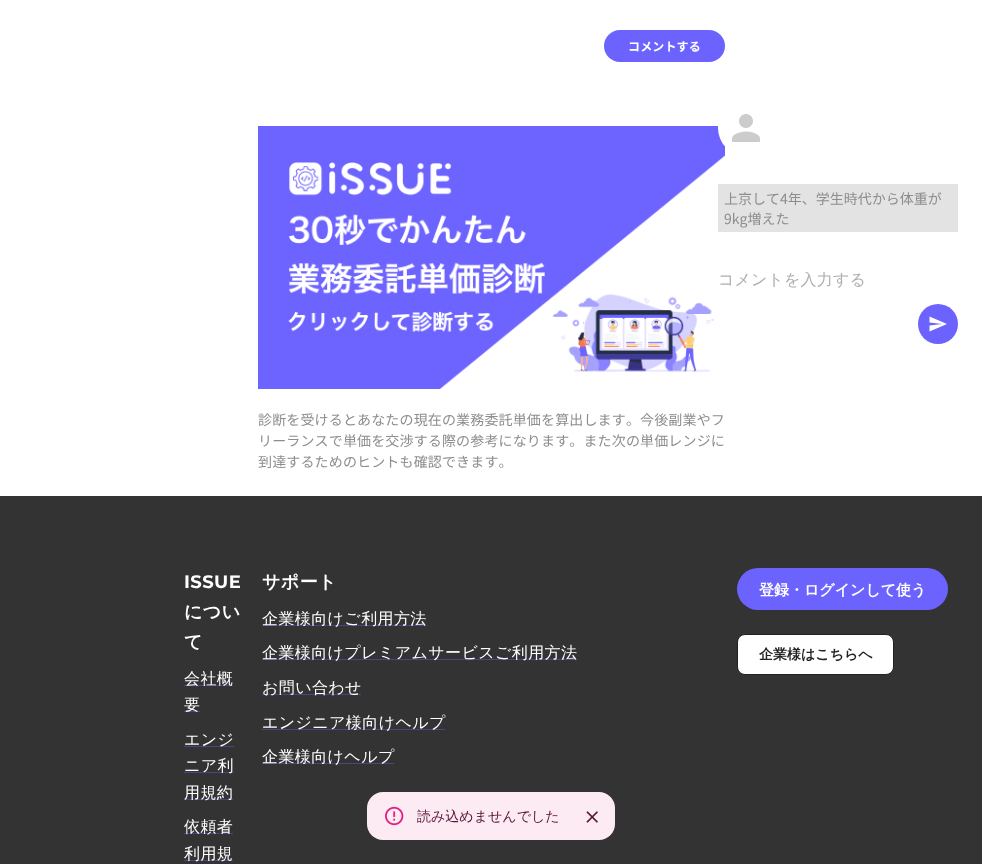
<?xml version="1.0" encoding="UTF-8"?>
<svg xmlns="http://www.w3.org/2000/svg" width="982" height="864">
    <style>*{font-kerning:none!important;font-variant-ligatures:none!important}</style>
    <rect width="100%" height="100%" fill="#FFFFFF"/>
    <rect x="604" y="30" width="121" height="32" rx="16" fill="#6C63FF"/>
    <text x="628" y="51" font-family="Noto Sans JP" font-size="12" font-weight="700" letter-spacing="0.15" fill="#FFFFFF">コメントする</text>
    <image x="258" y="126" width="467" height="263" href="img_01.png"/>
    <circle cx="746" cy="128" r="28" fill="#FFFFFF"/>
    <image x="732" y="114" width="28" height="28" href="img_02.png"/>
    <rect x="718" y="184" width="240" height="48" fill="#E3E3E3"/>
    <text font-family="Noto Sans JP" font-size="14" fill="#8D8D8D">
        <tspan x="724" y="204">上京して4年、学生時代から体重が</tspan>
        <tspan x="724" y="224">9kg増えた</tspan>
    </text>
    <text x="718" y="285" font-family="WenQuanYi Zen Hei" font-size="16" font-weight="500" letter-spacing="0.15" fill="#AFAFAF">コメントを入力する</text>
    <circle cx="938" cy="324" r="20" fill="#6C63FF"/>
    <path d="M 929.5 331.5 L 947 324 L 929.5 316.5 V 322.5 L 942 324 L 929.5 325.5 Z" fill="#FFFFFF"/>
    <text font-family="Noto Sans JP" font-size="14" letter-spacing="0.15" fill="#8D8D8D">
        <tspan x="258" y="425">診断を受けるとあなたの現在の業務委託単価を算出します。今後副業やフ</tspan>
        <tspan x="258" y="446">リーランスで単価を交渉する際の参考になります。また次の単価レンジに</tspan>
        <tspan x="258" y="467">到達するためのヒントも確認できます。</tspan>
    </text>
    <rect x="0" y="496" width="982" height="368" fill="#333333"/>
    <text x="184" y="588" font-family="Montserrat" font-size="18" font-weight="700" letter-spacing="0.4" fill="#FFFFFF">ISSUE</text>
    <text font-family="WenQuanYi Zen Hei" font-size="18" font-weight="700" letter-spacing="0.4" fill="#FFFFFF">
        <tspan x="184" y="618">につい</tspan>
        <tspan x="184" y="648">て</tspan>
    </text>
    <rect x="184" y="685" width="49" height="1" fill="#4A4685"/>
    <text x="184" y="684" font-family="WenQuanYi Zen Hei" font-size="16" font-weight="500" letter-spacing="0.4" fill="#FFFFFF">会社概</text>
    <rect x="184" y="711" width="16" height="1" fill="#4A4685"/>
    <text x="184" y="710" font-family="WenQuanYi Zen Hei" font-size="16" font-weight="500" letter-spacing="0.4" fill="#FFFFFF">要</text>
    <rect x="184" y="746" width="50" height="1" fill="#4A4685"/>
    <text x="184" y="745" font-family="WenQuanYi Zen Hei" font-size="16" font-weight="500" letter-spacing="0.4" fill="#FFFFFF">エンジ</text>
    <rect x="184" y="772" width="50" height="1" fill="#4A4685"/>
    <text x="184" y="771" font-family="WenQuanYi Zen Hei" font-size="16" font-weight="500" letter-spacing="0.4" fill="#FFFFFF">ニア利</text>
    <rect x="184" y="799" width="49" height="1" fill="#4A4685"/>
    <text x="184" y="798" font-family="WenQuanYi Zen Hei" font-size="16" font-weight="500" letter-spacing="0.4" fill="#FFFFFF">用規約</text>
    <rect x="184" y="833" width="49" height="1" fill="#4A4685"/>
    <text x="184" y="832" font-family="WenQuanYi Zen Hei" font-size="16" font-weight="500" letter-spacing="0.4" fill="#FFFFFF">依頼者</text>
    <rect x="184" y="860" width="49" height="1" fill="#4A4685"/>
    <text x="184" y="859" font-family="WenQuanYi Zen Hei" font-size="16" font-weight="500" letter-spacing="0.4" fill="#FFFFFF">利用規</text>
    <text x="262" y="588" font-family="WenQuanYi Zen Hei" font-size="18" font-weight="700" letter-spacing="0.4" fill="#FFFFFF">サポート</text>
    <rect x="262" y="625" width="164" height="1" fill="#4A4685"/>
    <text x="262" y="624" font-family="WenQuanYi Zen Hei" font-size="16" font-weight="500" letter-spacing="0.4" fill="#FFFFFF">企業様向けご利用方法</text>
    <rect x="262" y="659" width="315" height="1" fill="#4A4685"/>
    <text x="262" y="658" font-family="WenQuanYi Zen Hei" font-size="16" font-weight="500" letter-spacing="0.4" fill="#FFFFFF">企業様向けプレミアムサービスご利用方法</text>
    <rect x="262" y="694" width="99" height="1" fill="#4A4685"/>
    <text x="262" y="693" font-family="WenQuanYi Zen Hei" font-size="16" font-weight="500" letter-spacing="0.4" fill="#FFFFFF">お問い合わせ</text>
    <rect x="262" y="729" width="183" height="1" fill="#4A4685"/>
    <text x="262" y="728" font-family="WenQuanYi Zen Hei" font-size="16" font-weight="500" letter-spacing="0.4" fill="#FFFFFF">エンジニア様向けヘルプ</text>
    <rect x="262" y="763" width="132" height="1" fill="#4A4685"/>
    <text x="262" y="762" font-family="WenQuanYi Zen Hei" font-size="16" font-weight="500" letter-spacing="0.4" fill="#FFFFFF">企業様向けヘルプ</text>
    <rect x="737" y="568" width="211" height="42" rx="21" fill="#6C63FF"/>
    <text x="759" y="595" font-family="WenQuanYi Zen Hei" font-size="15" font-weight="700" fill="#FFFFFF">登録・ログインして使う</text>
    <rect x="737.5" y="634.5" width="156" height="40" rx="7.5" fill="#FFFFFF" stroke="#222222"/>
    <text x="759" y="659" font-family="WenQuanYi Zen Hei" font-size="14" font-weight="700" fill="#222222">企業様はこちらへ</text>
    <rect x="367" y="792" width="248" height="48" rx="16" fill="#FCEBF3"/>
    <image x="385" y="806" width="19" height="20" href="img_03.png"/>
    <text x="417" y="821" font-family="WenQuanYi Zen Hei" font-size="14" font-weight="500" fill="#5C1739">読み込めませんでした</text>
    <image x="586" y="811" width="12" height="12" href="img_04.png"/>
</svg>
